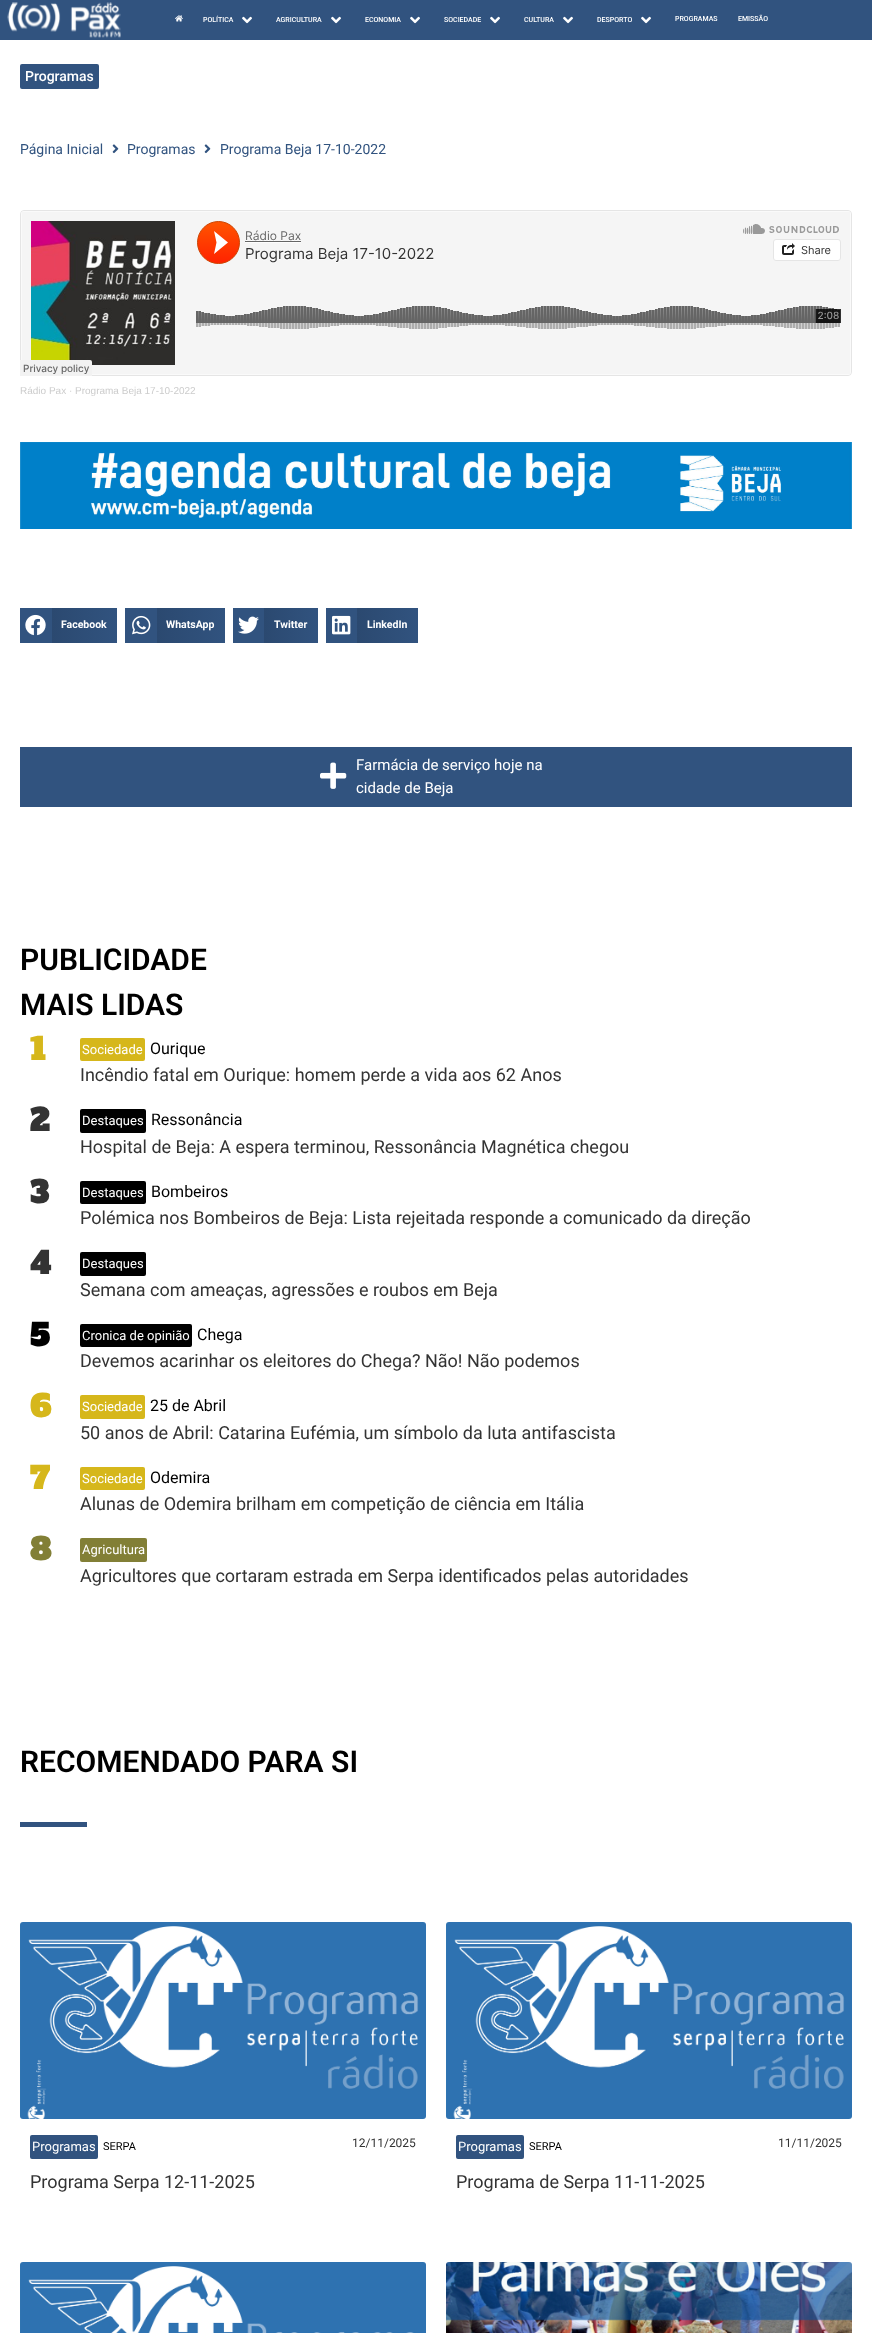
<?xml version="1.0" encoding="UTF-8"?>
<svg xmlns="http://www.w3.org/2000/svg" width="872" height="2333">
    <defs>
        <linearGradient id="g1" gradientUnits="userSpaceOnUse" x1="52" y1="626" x2="117" y2="626"><stop offset="0" stop-color="#2B4970"/><stop offset="1" stop-color="#31537F"/></linearGradient>
        <linearGradient id="g2" gradientUnits="userSpaceOnUse" x1="157" y1="626" x2="225" y2="626"><stop offset="0" stop-color="#2B4970"/><stop offset="1" stop-color="#31537F"/></linearGradient>
        <linearGradient id="g3" gradientUnits="userSpaceOnUse" x1="264" y1="626" x2="318" y2="626"><stop offset="0" stop-color="#2B4970"/><stop offset="1" stop-color="#31537F"/></linearGradient>
        <linearGradient id="g4" gradientUnits="userSpaceOnUse" x1="357" y1="626" x2="418" y2="626"><stop offset="0" stop-color="#2B4970"/><stop offset="1" stop-color="#31537F"/></linearGradient>
    </defs>
    <rect width="100%" height="100%" fill="#FFFFFF"/>
    <rect x="0" y="0" width="872" height="40" fill="#31537F"/>
    <image x="7" y="2" width="114" height="36" href="img_01.png"/>
    <image x="175" y="15" width="8" height="7" href="img_02.png"/>
    <text x="203" y="22" font-family="Roboto" font-size="7" font-weight="500" fill="#FFFFFF">POLÍTICA</text>
    <image x="242" y="16" width="10" height="8" href="img_03.png"/>
    <text x="276" y="22" font-family="Roboto" font-size="7" font-weight="500" fill="#FFFFFF">AGRICULTURA</text>
    <image x="331" y="16" width="10" height="8" href="img_03.png"/>
    <text x="365" y="22" font-family="Roboto" font-size="7" font-weight="500" fill="#FFFFFF">ECONOMIA</text>
    <image x="410" y="16" width="10" height="8" href="img_03.png"/>
    <text x="444" y="22" font-family="Roboto" font-size="7" font-weight="500" fill="#FFFFFF">SOCIEDADE</text>
    <image x="490" y="16" width="10" height="8" href="img_03.png"/>
    <text x="524" y="22" font-family="Roboto" font-size="7" font-weight="500" fill="#FFFFFF">CULTURA</text>
    <image x="563" y="16" width="10" height="8" href="img_03.png"/>
    <text x="597" y="22" font-family="Roboto" font-size="7" font-weight="500" fill="#FFFFFF">DESPORTO</text>
    <image x="641" y="16" width="10" height="8" href="img_03.png"/>
    <text x="675" y="21" font-family="Roboto" font-size="7" font-weight="500" fill="#FFFFFF">PROGRAMAS</text>
    <text x="738" y="21" font-family="Roboto" font-size="7" font-weight="500" fill="#FFFFFF">EMISSÃO</text>
    <rect x="20" y="64" width="79" height="25" rx="2" fill="#31537F"/>
    <text x="25" y="81" font-family="Roboto" font-size="14" font-weight="500" fill="#FFFFFF">Programas</text>
    <text x="20" y="154" font-family="Roboto" font-size="14" fill="#31537F">Página Inicial</text>
    <image x="112" y="144" width="7" height="10" href="img_04.png"/>
    <text x="127" y="154" font-family="Roboto" font-size="14" fill="#31537F">Programas</text>
    <image x="204" y="144" width="7" height="10" href="img_04.png"/>
    <text x="220" y="154" font-family="Roboto" font-size="14" fill="#31537F">Programa Beja 17-10-2022</text>
    <image x="20" y="210" width="832" height="166" href="img_05.png"/>
    <text x="20" y="394" font-family="Liberation Sans" font-size="10" fill="#CCCCCC">Rádio Pax · Programa Beja 17-10-2022</text>
    <image x="20" y="442" width="832" height="87" href="img_06.png"/>
    <rect x="20" y="608" width="32" height="35" fill="#31537F"/>
    <image x="25" y="614" width="21" height="22" href="img_07.png"/>
    <rect x="52" y="608" width="65" height="35" fill="url(#g1)"/>
    <text x="61" y="628" font-family="Roboto" font-size="10.5" font-weight="700" fill="#FFFFFF">Facebook</text>
    <rect x="125" y="608" width="32" height="35" fill="#31537F"/>
    <image x="132" y="615" width="19" height="20" href="img_08.png"/>
    <rect x="157" y="608" width="68" height="35" fill="url(#g2)"/>
    <text x="166" y="628" font-family="Roboto" font-size="10.5" font-weight="700" fill="#FFFFFF">WhatsApp</text>
    <rect x="233" y="608" width="31" height="35" fill="#31537F"/>
    <image x="238" y="616" width="21" height="18" href="img_09.png"/>
    <rect x="264" y="608" width="54" height="35" fill="url(#g3)"/>
    <text x="274" y="628" font-family="Roboto" font-size="10.5" font-weight="700" fill="#FFFFFF">Twitter</text>
    <rect x="326" y="608" width="31" height="35" fill="#31537F"/>
    <image x="332" y="615" width="19" height="20" href="img_10.png"/>
    <rect x="357" y="608" width="61" height="35" fill="url(#g4)"/>
    <text x="367" y="628" font-family="Roboto" font-size="10.5" font-weight="700" fill="#FFFFFF">LinkedIn</text>
    <rect x="20" y="747" width="832" height="60" fill="#31537F"/>
    <image x="320" y="762" width="27" height="27" href="img_11.png"/>
    <text font-family="Roboto" font-size="15" fill="#FFFFFF">
        <tspan x="356" y="770">Farmácia de serviço hoje na</tspan>
        <tspan x="356" y="793">cidade de Beja</tspan>
    </text>
    <text font-family="Roboto" font-size="30" font-weight="600" fill="#000000">
        <tspan x="20" y="970">PUBLICIDADE</tspan>
        <tspan x="20" y="1015">MAIS LIDAS</tspan>
    </text>
    <text x="30" y="1060" font-family="Alfa Slab One" font-size="30" font-weight="700" fill="#D6B71B">1</text>
    <rect x="80" y="1038" width="65" height="23" rx="2" fill="#D6B71B"/>
    <text x="82" y="1054" font-family="Roboto" font-size="13" fill="#FFFFFF">Sociedade</text>
    <text x="150" y="1054" font-family="Roboto" font-size="16" fill="#000000">Ourique</text>
    <text x="80" y="1081" font-family="Roboto" font-size="18" fill="#333333">Incêndio fatal em Ourique: homem perde a vida aos 62 Anos</text>
    <text x="30" y="1131" font-family="Alfa Slab One" font-size="30" font-weight="700" fill="#333333">2</text>
    <rect x="80" y="1109" width="66" height="24" rx="2" fill="#000000"/>
    <text x="82" y="1125" font-family="Roboto" font-size="13" fill="#FFFFFF">Destaques</text>
    <text x="151" y="1125" font-family="Roboto" font-size="16" fill="#000000">Ressonância</text>
    <text x="80" y="1153" font-family="Roboto" font-size="18" fill="#333333">Hospital de Beja: A espera terminou, Ressonância Magnética chegou</text>
    <text x="30" y="1203" font-family="Alfa Slab One" font-size="30" font-weight="700" fill="#333333">3</text>
    <rect x="80" y="1181" width="66" height="23" rx="2" fill="#000000"/>
    <text x="82" y="1197" font-family="Roboto" font-size="13" fill="#FFFFFF">Destaques</text>
    <text x="151" y="1197" font-family="Roboto" font-size="16" fill="#000000">Bombeiros</text>
    <text x="80" y="1224" font-family="Roboto" font-size="18" fill="#333333">Polémica nos Bombeiros de Beja: Lista rejeitada responde a comunicado da direção</text>
    <text x="30" y="1274" font-family="Alfa Slab One" font-size="30" font-weight="700" fill="#333333">4</text>
    <rect x="80" y="1252" width="66" height="24" rx="2" fill="#000000"/>
    <text x="82" y="1268" font-family="Roboto" font-size="13" fill="#FFFFFF">Destaques</text>
    <text x="80" y="1296" font-family="Roboto" font-size="18" fill="#333333">Semana com ameaças, agressões e roubos em Beja</text>
    <text x="30" y="1346" font-family="Alfa Slab One" font-size="30" font-weight="700" fill="#000000">5</text>
    <rect x="80" y="1324" width="112" height="23" rx="2" fill="#000000"/>
    <text x="82" y="1340" font-family="Roboto" font-size="13" fill="#FFFFFF">Cronica de opinião</text>
    <text x="197" y="1340" font-family="Roboto" font-size="16" fill="#000000">Chega</text>
    <text x="80" y="1367" font-family="Roboto" font-size="18" fill="#333333">Devemos acarinhar os eleitores do Chega? Não! Não podemos</text>
    <text x="30" y="1417" font-family="Alfa Slab One" font-size="30" font-weight="700" fill="#D6B71B">6</text>
    <rect x="80" y="1395" width="65" height="24" rx="2" fill="#D6B71B"/>
    <text x="82" y="1411" font-family="Roboto" font-size="13" fill="#FFFFFF">Sociedade</text>
    <text x="150" y="1411" font-family="Roboto" font-size="16" fill="#000000">25 de Abril</text>
    <text x="80" y="1439" font-family="Roboto" font-size="18" fill="#333333">50 anos de Abril: Catarina Eufémia, um símbolo da luta antifascista</text>
    <text x="30" y="1489" font-family="Alfa Slab One" font-size="30" font-weight="700" fill="#D6B71B">7</text>
    <rect x="80" y="1467" width="65" height="23" rx="2" fill="#D6B71B"/>
    <text x="82" y="1483" font-family="Roboto" font-size="13" fill="#FFFFFF">Sociedade</text>
    <text x="150" y="1483" font-family="Roboto" font-size="16" fill="#000000">Odemira</text>
    <text x="80" y="1510" font-family="Roboto" font-size="18" fill="#333333">Alunas de Odemira brilham em competição de ciência em Itália</text>
    <text x="30" y="1560" font-family="Alfa Slab One" font-size="30" font-weight="700" fill="#827F36">8</text>
    <rect x="80" y="1538" width="67" height="24" rx="2" fill="#827F36"/>
    <text x="82" y="1554" font-family="Roboto" font-size="13" fill="#FFFFFF">Agricultura</text>
    <text x="80" y="1582" font-family="Roboto" font-size="18" fill="#333333">Agricultores que cortaram estrada em Serpa identificados pelas autoridades</text>
    <text x="20" y="1772" font-family="Roboto" font-size="30" font-weight="600" fill="#000000">RECOMENDADO PARA SI</text>
    <rect x="20" y="1822" width="67" height="5" fill="#31537F"/>
    <image x="20" y="1922" width="406" height="197" href="img_12.png"/>
    <rect x="30" y="2135" width="68" height="24" rx="2" fill="#31537F"/>
    <text x="32" y="2151" font-family="Roboto" font-size="13" fill="#FFFFFF">Programas</text>
    <text x="103" y="2150" font-family="Roboto" font-size="11" fill="#000000">SERPA</text>
    <text x="352" y="2147" font-family="Roboto" font-size="12" fill="#333333">12/11/2025</text>
    <text x="30" y="2188" font-family="Roboto" font-size="18" fill="#333333">Programa Serpa 12-11-2025</text>
    <image x="446" y="1922" width="406" height="197" href="img_13.png"/>
    <rect x="456" y="2135" width="68" height="24" rx="2" fill="#31537F"/>
    <text x="458" y="2151" font-family="Roboto" font-size="13" fill="#FFFFFF">Programas</text>
    <text x="529" y="2150" font-family="Roboto" font-size="11" fill="#000000">SERPA</text>
    <text x="778" y="2147" font-family="Roboto" font-size="12" fill="#333333">11/11/2025</text>
    <text x="456" y="2188" font-family="Roboto" font-size="18" fill="#333333">Programa de Serpa 11-11-2025</text>
    <image x="20" y="2262" width="406" height="71" href="img_14.png"/>
    <image x="446" y="2262" width="406" height="71" href="img_15.png"/>
</svg>
